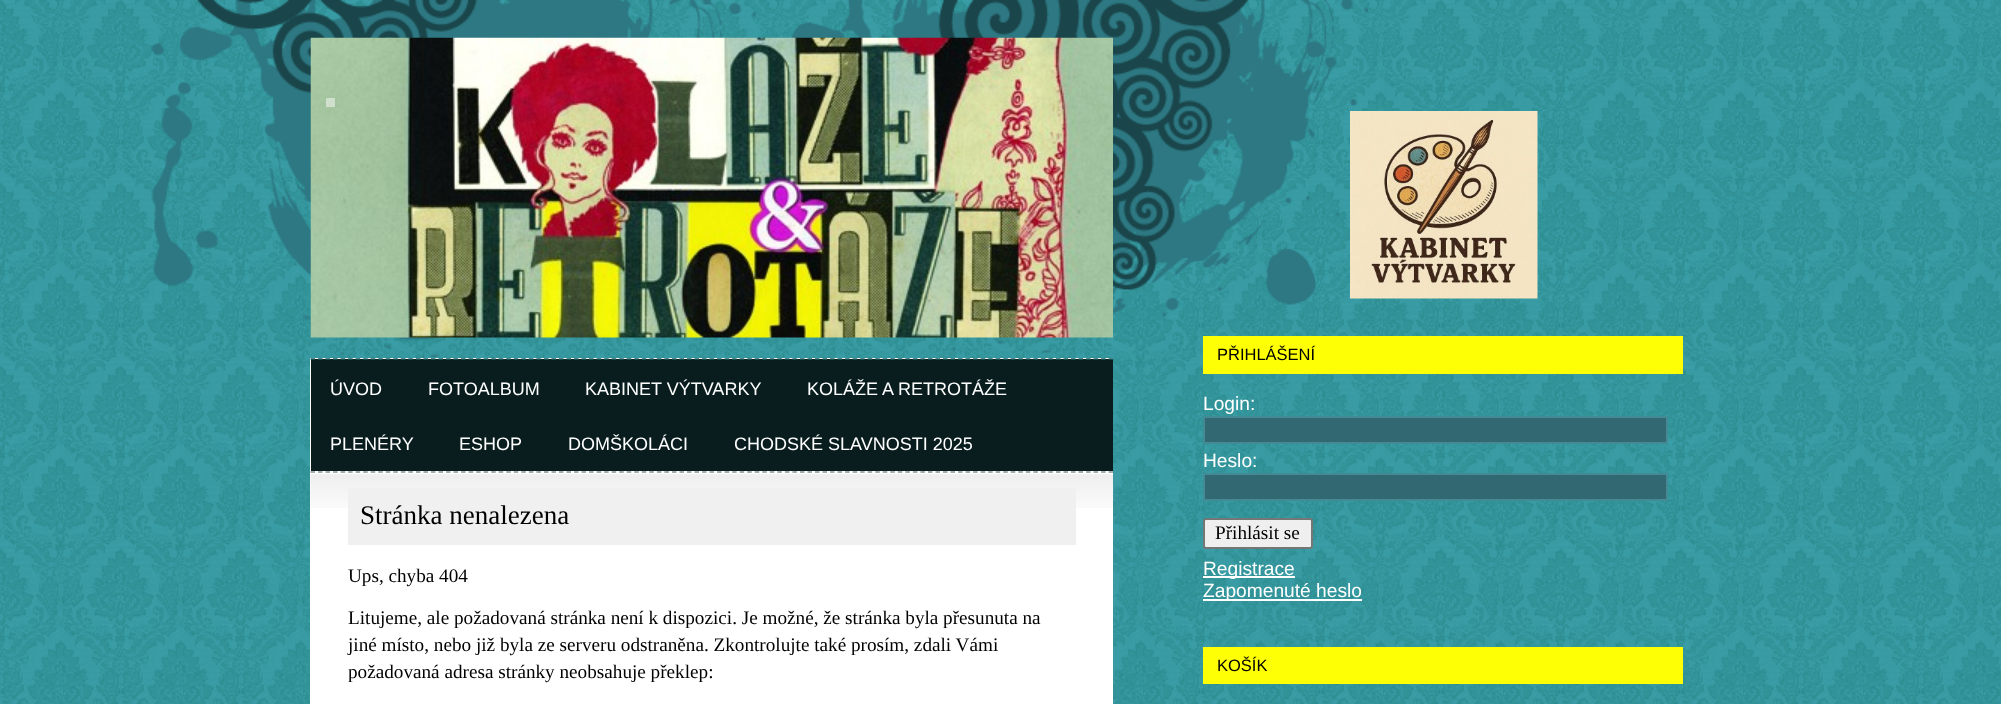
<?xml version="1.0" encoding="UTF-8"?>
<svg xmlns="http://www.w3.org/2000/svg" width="2001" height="704">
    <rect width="100%" height="100%" fill="#FFFFFF"/>
    <image x="0" y="0" width="2001" height="704" href="img_01.png"/>
    <image x="148" y="0" width="1220" height="358" href="img_02.png"/>
    <image x="310" y="37" width="803" height="301" href="img_03.png"/>
    <rect x="326" y="98" width="9" height="9" fill="#FBFBFB" fill-opacity="0.5"/>
    <rect x="310" y="358" width="803" height="346" fill="#FFFFFF"/>
    <rect x="311" y="359" width="802" height="112" fill="#091D1E"/>
    <path d="M 310.5 359 H 1113" fill="none" stroke="#1C5D60" stroke-width="1.5" stroke-dasharray="4.5 3.03"/>
    <text x="330" y="395" font-family="Liberation Sans" font-size="18" fill="#FFFFFF">ÚVOD</text>
    <text x="428" y="395" font-family="Liberation Sans" font-size="18" fill="#FFFFFF">FOTOALBUM</text>
    <text x="585" y="395" font-family="Liberation Sans" font-size="18" fill="#FFFFFF">KABINET VÝTVARKY</text>
    <text x="807" y="395" font-family="Liberation Sans" font-size="18" fill="#FFFFFF">KOLÁŽE A RETROTÁŽE</text>
    <text x="330" y="450" font-family="Liberation Sans" font-size="18" fill="#FFFFFF">PLENÉRY</text>
    <text x="459" y="450" font-family="Liberation Sans" font-size="18" fill="#FFFFFF">ESHOP</text>
    <text x="568" y="450" font-family="Liberation Sans" font-size="18" fill="#FFFFFF">DOMŠKOLÁCI</text>
    <text x="734" y="450" font-family="Liberation Sans" font-size="18" fill="#FFFFFF">CHODSKÉ SLAVNOSTI 2025</text>
    <image x="1350" y="111" width="188" height="188" href="img_04.png"/>
    <rect x="1203" y="336" width="480" height="38" fill="#FEFF05"/>
    <text x="1217" y="360" font-family="Liberation Sans" font-size="16.5" fill="#000000">PŘIHLÁŠENÍ</text>
    <text x="1203" y="410" font-family="Liberation Sans" font-size="19.2" fill="#FFFFFF">Login:</text>
    <rect x="1204" y="417" width="463" height="26" fill="#326872" stroke="#438A95" stroke-width="2"/>
    <text x="1203" y="467" font-family="Liberation Sans" font-size="19.2" fill="#FFFFFF">Heslo:</text>
    <rect x="1204" y="474" width="463" height="26" fill="#326872" stroke="#438A95" stroke-width="2"/>
    <rect x="1204" y="519" width="108" height="29" rx="2" fill="#EFEFEF" stroke="#767676" stroke-width="2"/>
    <text x="1215" y="539" font-family="Liberation Serif" font-size="19.2" fill="#000000">Přihlásit se</text>
    <rect x="1203" y="576" width="92" height="2" fill="#FFFFFF"/>
    <text x="1203" y="575" font-family="Liberation Sans" font-size="19.2" fill="#FFFFFF">Registrace</text>
    <rect x="1203" y="599" width="159" height="2" fill="#FFFFFF"/>
    <text x="1203" y="597" font-family="Liberation Sans" font-size="19.2" fill="#FFFFFF">Zapomenuté heslo</text>
    <rect x="1203" y="647" width="480" height="37" fill="#FEFF05"/>
    <text x="1217" y="671" font-family="Liberation Sans" font-size="16.5" fill="#000000">KOŠÍK</text>
    <image x="310" y="474" width="803" height="34" href="img_05.png"/>
    <path d="M 310.5 472 H 1113" fill="none" stroke="#819393" stroke-width="1.5" stroke-dasharray="4.5 3.03"/>
    <rect x="348" y="488" width="728" height="57" fill="#F0F0F0"/>
    <text x="360" y="524" font-family="Liberation Serif" font-size="27" fill="#000000">Stránka nenalezena</text>
    <text x="348" y="582" font-family="Liberation Serif" font-size="19.2" fill="#000000">Ups, chyba 404</text>
    <text font-family="Liberation Serif" font-size="19.2" fill="#000000">
        <tspan x="348" y="624">Litujeme, ale požadovaná stránka není k dispozici. Je možné, že stránka byla přesunuta na</tspan>
        <tspan x="348" y="651">jiné místo, nebo již byla ze serveru odstraněna. Zkontrolujte také prosím, zdali Vámi</tspan>
        <tspan x="348" y="678">požadovaná adresa stránky neobsahuje překlep:</tspan>
    </text>
</svg>
